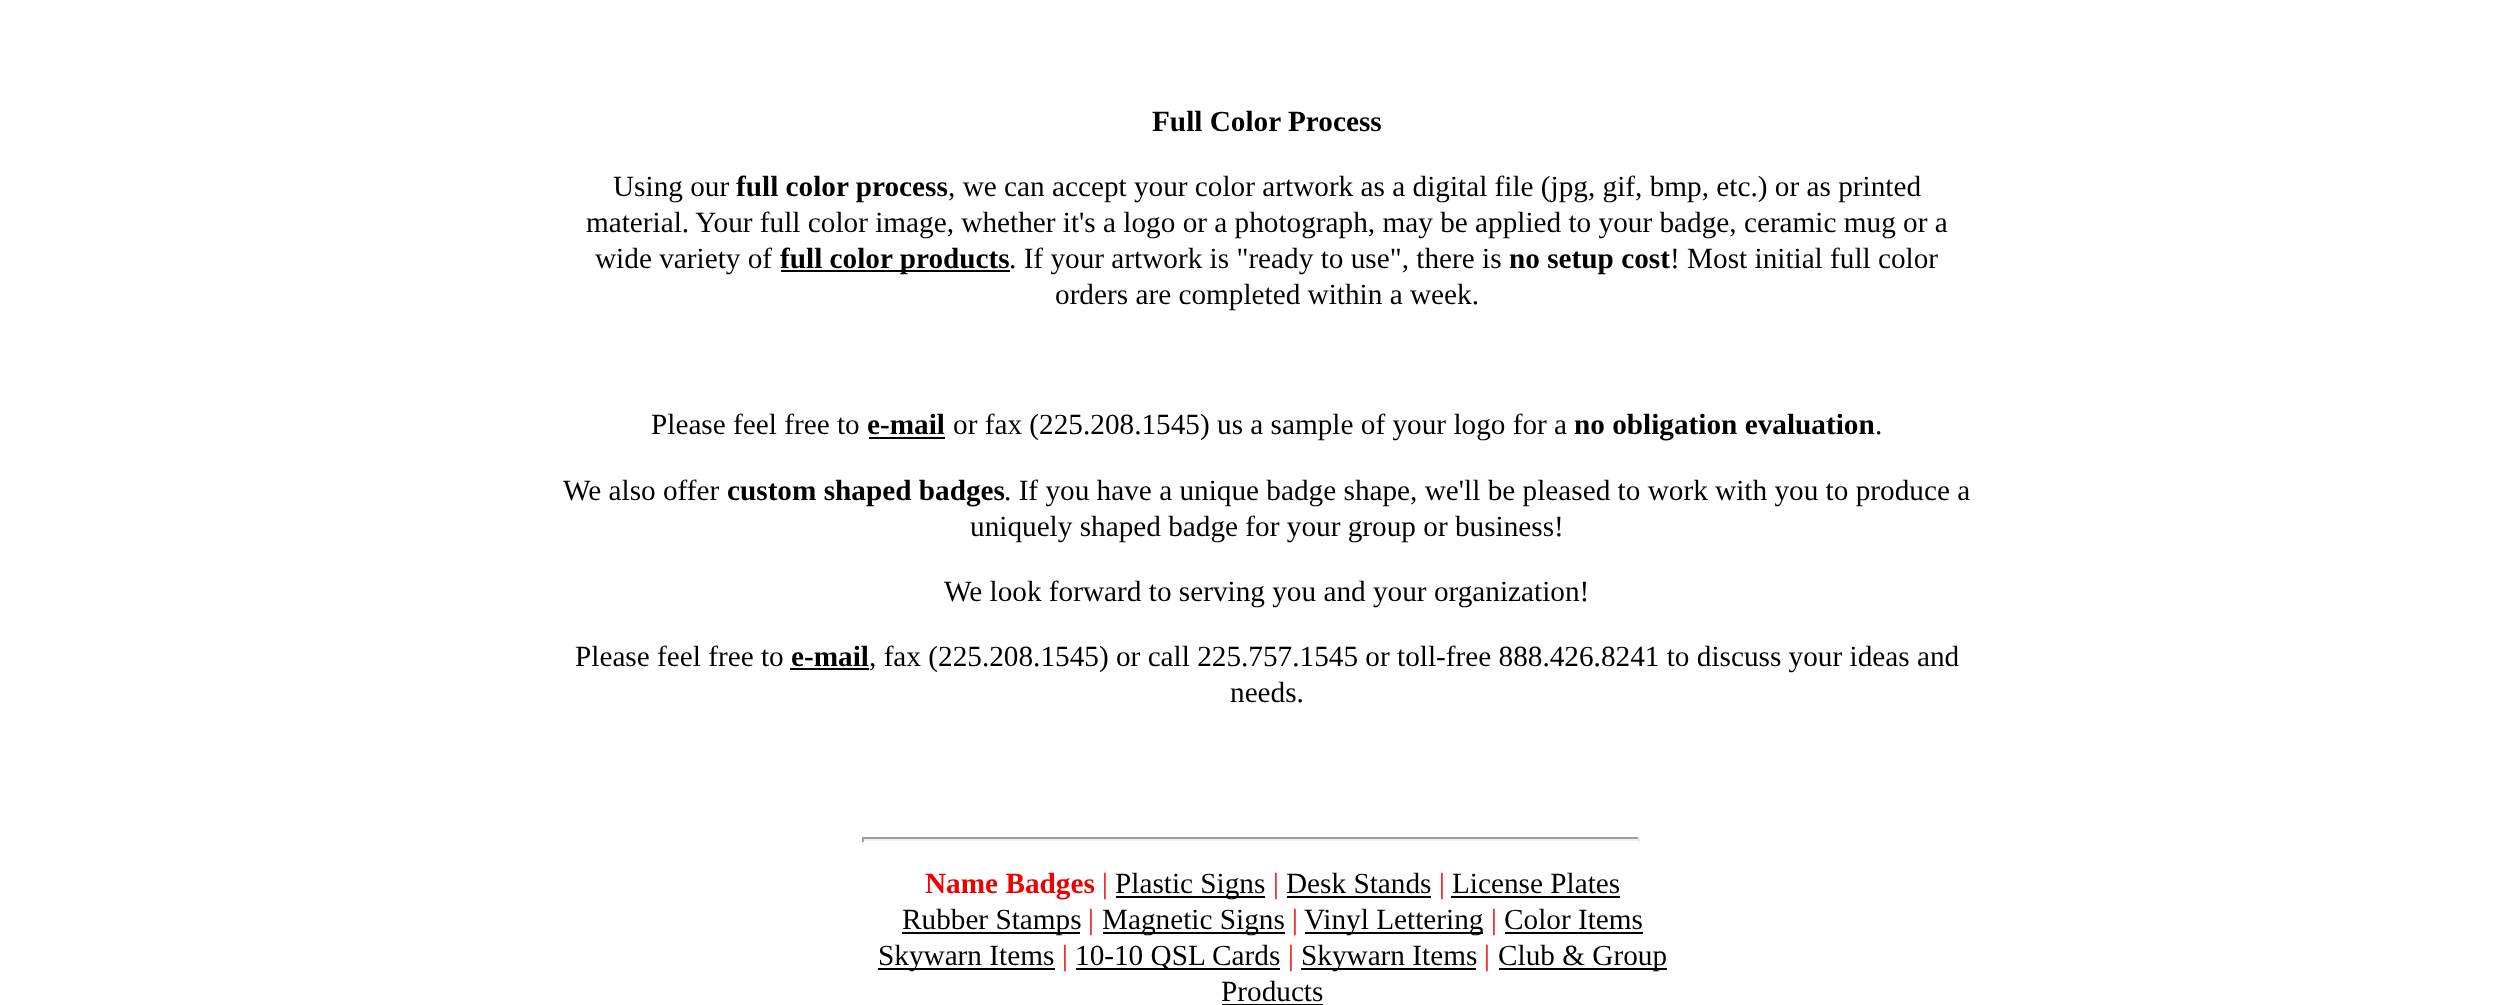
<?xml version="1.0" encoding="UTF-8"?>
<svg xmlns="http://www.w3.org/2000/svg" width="2502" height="1005">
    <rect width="100%" height="100%" fill="#FFFFFF"/>
    <text x="1152" y="131" font-family="Liberation Serif" font-size="29.25" font-weight="700" fill="#000000">Full Color Process</text>
    <text x="613" y="196" font-family="Liberation Serif" font-size="29.25" fill="#000000">Using our</text>
    <text x="736" y="196" font-family="Liberation Serif" font-size="29.25" font-weight="700" fill="#000000">full color process</text>
    <text x="948" y="196" font-family="Liberation Serif" font-size="29.25" fill="#000000">, we can accept your color artwork as a digital file (jpg, gif, bmp, etc.) or as printed</text>
    <text x="586" y="232" font-family="Liberation Serif" font-size="29.25" fill="#000000">material. Your full color image, whether it's a logo or a photograph, may be applied to your badge, ceramic mug or a</text>
    <text x="595" y="268" font-family="Liberation Serif" font-size="29.25" fill="#000000">wide variety of</text>
    <rect x="781" y="270" width="229" height="2" fill="#000000"/>
    <text x="780" y="268" font-family="Liberation Serif" font-size="29.25" font-weight="700" fill="#000000">full color products</text>
    <text x="1009" y="268" font-family="Liberation Serif" font-size="29.25" fill="#000000">. If your artwork is "ready to use", there is</text>
    <text x="1509" y="268" font-family="Liberation Serif" font-size="29.25" font-weight="700" fill="#000000">no setup cost</text>
    <text x="1670" y="268" font-family="Liberation Serif" font-size="29.25" fill="#000000">! Most initial full color</text>
    <text x="1055" y="304" font-family="Liberation Serif" font-size="29.25" fill="#000000">orders are completed within a week.</text>
    <text x="651" y="434" font-family="Liberation Serif" font-size="29.25" fill="#000000">Please feel free to</text>
    <text x="867" y="434" font-family="Liberation Serif" font-size="29.25" font-weight="700" fill="#000000">e-mail</text>
    <rect x="869" y="437" width="76" height="2" fill="#000000"/>
    <text x="953" y="434" font-family="Liberation Serif" font-size="29.25" fill="#000000">or fax (225.208.1545) us a sample of your logo for a</text>
    <text x="1574" y="434" font-family="Liberation Serif" font-size="29.25" font-weight="700" fill="#000000">no obligation evaluation</text>
    <text x="1875" y="434" font-family="Liberation Serif" font-size="29.25" fill="#000000">.</text>
    <text x="563" y="500" font-family="Liberation Serif" font-size="29.25" fill="#000000">We also offer</text>
    <text x="727" y="500" font-family="Liberation Serif" font-size="29.25" font-weight="700" fill="#000000">custom shaped badges</text>
    <text x="1004" y="500" font-family="Liberation Serif" font-size="29.25" fill="#000000">. If you have a unique badge shape, we'll be pleased to work with you to produce a</text>
    <text x="970" y="536" font-family="Liberation Serif" font-size="29.25" fill="#000000">uniquely shaped badge for your group or business!</text>
    <text x="944" y="601" font-family="Liberation Serif" font-size="29.25" fill="#000000">We look forward to serving you and your organization!</text>
    <text x="575" y="666" font-family="Liberation Serif" font-size="29.25" fill="#000000">Please feel free to</text>
    <text x="791" y="666" font-family="Liberation Serif" font-size="29.25" font-weight="700" fill="#000000">e-mail</text>
    <rect x="790" y="668" width="79" height="2" fill="#000000"/>
    <text x="869" y="666" font-family="Liberation Serif" font-size="29.25" fill="#000000">, fax (225.208.1545) or call 225.757.1545 or toll-free 888.426.8241 to discuss your ideas and</text>
    <text x="1230" y="702" font-family="Liberation Serif" font-size="29.25" fill="#000000">needs.</text>
    <rect x="862" y="837" width="778" height="2" fill="#9F9F9F"/>
    <rect x="1638" y="837" width="2" height="5" fill="#EEEEEE"/>
    <rect x="862" y="839" width="778" height="2" fill="#EEEEEE"/>
    <rect x="862" y="837" width="2" height="5" fill="#9F9F9F"/>
    <text x="925" y="893" font-family="Liberation Serif" font-size="29.25" font-weight="700" fill="#EE0000">Name Badges</text>
    <text x="1102" y="893" font-family="Liberation Serif" font-size="29.25" fill="#EE0000">|</text>
    <rect x="1116" y="896" width="149" height="2" fill="#000000"/>
    <text x="1115" y="893" font-family="Liberation Serif" font-size="29.25" fill="#000000">Plastic Signs</text>
    <text x="1273" y="893" font-family="Liberation Serif" font-size="29.25" fill="#EE0000">|</text>
    <text x="1286" y="893" font-family="Liberation Serif" font-size="29.25" fill="#000000">Desk Stands</text>
    <rect x="1287" y="896" width="144" height="2" fill="#000000"/>
    <text x="1439" y="893" font-family="Liberation Serif" font-size="29.25" fill="#EE0000">|</text>
    <text x="1452" y="893" font-family="Liberation Serif" font-size="29.25" fill="#000000">License Plates</text>
    <rect x="1451" y="896" width="169" height="2" fill="#000000"/>
    <rect x="902" y="932" width="178" height="2" fill="#000000"/>
    <text x="902" y="929" font-family="Liberation Serif" font-size="29.25" fill="#000000">Rubber Stamps</text>
    <text x="1088" y="929" font-family="Liberation Serif" font-size="29.25" fill="#EE0000">|</text>
    <rect x="1103" y="932" width="182" height="2" fill="#000000"/>
    <text x="1102" y="929" font-family="Liberation Serif" font-size="29.25" fill="#000000">Magnetic Signs</text>
    <text x="1292" y="929" font-family="Liberation Serif" font-size="29.25" fill="#EE0000">|</text>
    <rect x="1305" y="932" width="178" height="2" fill="#000000"/>
    <text x="1304" y="929" font-family="Liberation Serif" font-size="29.25" fill="#000000">Vinyl Lettering</text>
    <text x="1491" y="929" font-family="Liberation Serif" font-size="29.25" fill="#EE0000">|</text>
    <text x="1504" y="929" font-family="Liberation Serif" font-size="29.25" fill="#000000">Color Items</text>
    <rect x="1505" y="932" width="138" height="2" fill="#000000"/>
    <rect x="878" y="968" width="177" height="2" fill="#000000"/>
    <text x="878" y="965" font-family="Liberation Serif" font-size="29.25" fill="#000000">Skywarn Items</text>
    <text x="1062" y="965" font-family="Liberation Serif" font-size="29.25" fill="#EE0000">|</text>
    <rect x="1076" y="968" width="204" height="2" fill="#000000"/>
    <text x="1075" y="965" font-family="Liberation Serif" font-size="29.25" fill="#000000">10-10 QSL Cards</text>
    <text x="1288" y="965" font-family="Liberation Serif" font-size="29.25" fill="#EE0000">|</text>
    <rect x="1301" y="968" width="175" height="2" fill="#000000"/>
    <text x="1301" y="965" font-family="Liberation Serif" font-size="29.25" fill="#000000">Skywarn Items</text>
    <text x="1484" y="965" font-family="Liberation Serif" font-size="29.25" fill="#EE0000">|</text>
    <rect x="1499" y="968" width="168" height="2" fill="#000000"/>
    <text x="1498" y="965" font-family="Liberation Serif" font-size="29.25" fill="#000000">Club &amp; Group</text>
    <text x="1221" y="1001" font-family="Liberation Serif" font-size="29.25" fill="#000000">Products</text>
    <rect x="1222" y="1004" width="101" height="1" fill="#000000"/>
</svg>
